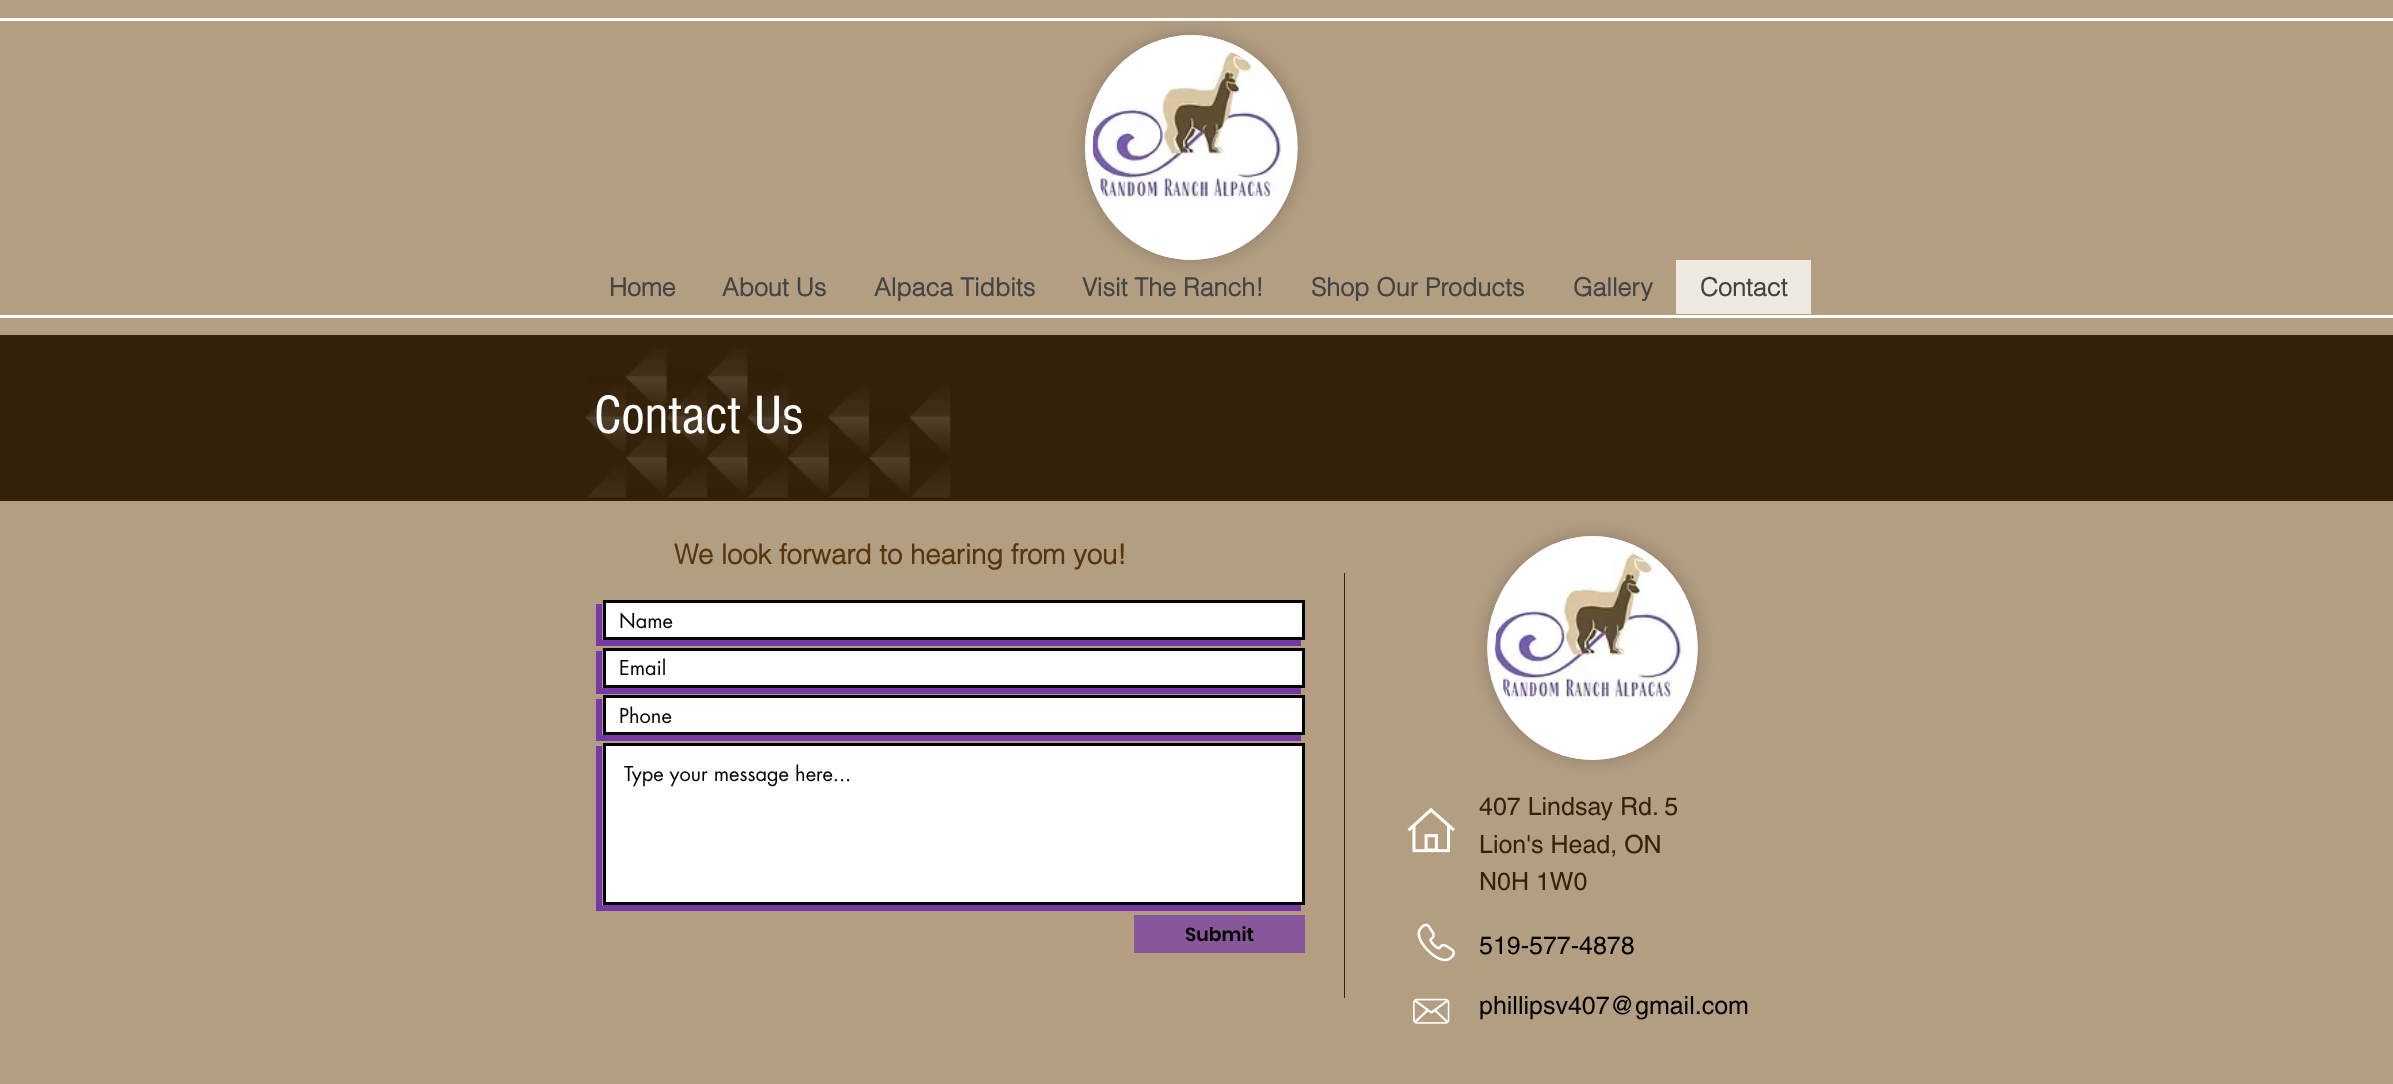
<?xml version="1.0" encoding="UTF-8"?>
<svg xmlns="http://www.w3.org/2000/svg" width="2393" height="1084">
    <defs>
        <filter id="blur1" x="-50%" y="-200%" width="200%" height="500%"><feGaussianBlur stdDeviation="9"/></filter>
    </defs>
    <rect width="100%" height="100%" fill="#B39E82"/>
    <rect x="0" y="18" width="2393" height="3" fill="#FFFFFF"/>
    <rect x="0" y="315" width="2393" height="3" fill="#FFFFFF"/>
    <rect x="1085" y="35" width="213" height="225" rx="106.5" fill="#000000" fill-opacity="0.2" filter="url(#blur1)"/>
    <ellipse cx="1191" cy="147.5" rx="106" ry="112.5" fill="#FFFFFF"/>
    <path d="M 1191 39 C 1248 39 1294 87.5 1294 147.5 C 1294 207.5 1248 256 1191 256 C 1134.5 256 1089 207.5 1089 147.5 C 1089 87.5 1134.5 39 1191 39 Z" fill="none" stroke="#FFFFFF" stroke-width="7.5"/>
    <image x="1092" y="51" width="191" height="153" href="img_01.png"/>
    <text x="609" y="296" font-family="helvetica" font-size="25" font-weight="700" fill="#444444">Home</text>
    <text x="722" y="296" font-family="helvetica" font-size="25" font-weight="700" fill="#444444">About Us</text>
    <text x="874" y="296" font-family="helvetica" font-size="25" font-weight="700" fill="#444444">Alpaca Tidbits</text>
    <text x="1082" y="296" font-family="helvetica" font-size="25" font-weight="700" fill="#444444">Visit The Ranch!</text>
    <text x="1311" y="296" font-family="helvetica" font-size="25" font-weight="700" fill="#444444">Shop Our Products</text>
    <text x="1573" y="296" font-family="helvetica" font-size="25" font-weight="700" fill="#444444">Gallery</text>
    <rect x="1676" y="260" width="135" height="54" fill="#EDE9E1"/>
    <text x="1700" y="296" font-family="helvetica" font-size="25" font-weight="700" fill="#444444">Contact</text>
    <rect x="0" y="335" width="2393" height="166" fill="#342109"/>
    <image x="585" y="349" width="366" height="148" href="img_02.png"/>
    <text x="594" y="433" font-family="'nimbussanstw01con'" font-size="56" fill="#FFFFFF">Contact Us</text>
    <text x="674" y="564" font-family="helvetica" font-size="27.5" font-weight="700" fill="#55360F">We look forward to hearing from you!</text>
    <rect x="1488" y="536" width="210" height="224" rx="105" fill="#000000" fill-opacity="0.2" filter="url(#blur1)"/>
    <ellipse cx="1592.5" cy="648" rx="105" ry="112" fill="#FFFFFF"/>
    <path d="M 1592.5 540 C 1648.5 540 1694 588.5 1694 648 C 1694 708 1648.5 756 1592.5 756 C 1536.5 756 1491 708 1491 648 C 1491 588.5 1536.5 540 1592.5 540 Z" fill="none" stroke="#FFFFFF" stroke-width="7.5"/>
    <image x="1495" y="552" width="195" height="148" href="img_03.png"/>
    <path d="M 596 604 V 646 H 1301 V 640 H 602 V 604 Z" fill="#7538A6"/>
    <rect x="604.5" y="601.5" width="699" height="37" fill="#FFFFFF" stroke="#000000" stroke-width="3"/>
    <text x="619" y="628" font-family="futura" font-size="20" fill="#000000">Name</text>
    <path d="M 596 651 V 694 H 1301 V 688 H 602 V 651 Z" fill="#7538A6"/>
    <rect x="604.5" y="649.5" width="699" height="37" fill="#FFFFFF" stroke="#000000" stroke-width="3"/>
    <text x="619" y="675" font-family="futura" font-size="20" fill="#000000">Email</text>
    <path d="M 596 699 V 741 H 1301 V 735 H 602 V 699 Z" fill="#7538A6"/>
    <rect x="604.5" y="696.5" width="699" height="37" fill="#FFFFFF" stroke="#000000" stroke-width="3"/>
    <text x="619" y="723" font-family="futura" font-size="20" fill="#000000">Phone</text>
    <path d="M 596 746 V 911 H 1301 V 905 H 602 V 746 Z" fill="#7538A6"/>
    <rect x="604.5" y="744.5" width="699" height="159" fill="#FFFFFF" stroke="#000000" stroke-width="3"/>
    <text x="624" y="781" font-family="futura" font-size="20" fill="#000000">Type your message here...</text>
    <rect x="1134" y="915" width="171" height="38" fill="#88579B"/>
    <text x="1185" y="941" font-family="Poppins" font-size="19" font-weight="600" fill="#000000">Submit</text>
    <rect x="1344" y="573" width="1" height="425" fill="#342109"/>
    <image x="1407" y="808" width="48" height="45" href="img_04.png"/>
    <text font-family="helvetica" font-size="25" fill="#342109">
        <tspan x="1479" y="815">407 Lindsay Rd. 5</tspan>
        <tspan x="1479" y="853">Lion's Head, ON</tspan>
        <tspan x="1479" y="890">N0H 1W0</tspan>
    </text>
    <text x="1479" y="954" font-family="helvetica" font-size="25" fill="#000000">519-577-4878</text>
    <text x="1479" y="1014" font-family="helvetica" font-size="25" fill="#000000">phillipsv407@gmail.com</text>
    <image x="1417" y="923" width="38" height="39" href="img_05.png"/>
    <image x="1413" y="998" width="37" height="26" href="img_06.png"/>
</svg>
